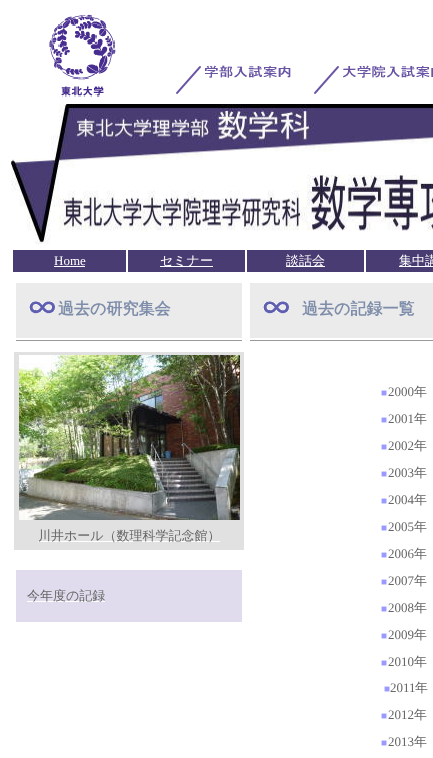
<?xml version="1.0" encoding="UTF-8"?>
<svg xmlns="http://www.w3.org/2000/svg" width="433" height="758">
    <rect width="100%" height="100%" fill="#FFFFFF"/>
    <image x="49" y="14" width="67" height="83" href="img_01.png"/>
    <image x="176" y="66" width="25" height="28" href="img_02.png"/>
    <image x="205" y="65" width="86" height="13" href="img_03.png"/>
    <image x="314" y="66" width="25" height="28" href="img_02.png"/>
    <image x="343" y="65" width="90" height="13" href="img_04.png"/>
    <image x="11" y="104" width="422" height="140" href="img_05.png"/>
    <rect x="13" y="250" width="113" height="22" fill="#493C73"/>
    <text x="54" y="265" font-family="Liberation Serif" font-size="13" fill="#FFFFFF">Home</text>
    <rect x="54" y="266" width="31" height="1" fill="#FFFFFF"/>
    <rect x="128" y="250" width="117" height="22" fill="#493C73"/>
    <rect x="160" y="266" width="53" height="1" fill="#FFFFFF"/>
    <text x="160" y="265" font-family="WenQuanYi Zen Hei" font-size="13" font-weight="500" fill="#FFFFFF">セミナー</text>
    <rect x="247" y="250" width="117" height="22" fill="#493C73"/>
    <rect x="286" y="266" width="39" height="1" fill="#FFFFFF"/>
    <text x="286" y="265" font-family="WenQuanYi Zen Hei" font-size="13" font-weight="500" fill="#FFFFFF">談話会</text>
    <rect x="366" y="250" width="67" height="22" fill="#493C73"/>
    <rect x="399" y="266" width="34" height="1" fill="#FFFFFF"/>
    <text x="399" y="265" font-family="WenQuanYi Zen Hei" font-size="13" font-weight="500" fill="#FFFFFF">集中講</text>
    <rect x="16" y="283" width="226" height="55" fill="#EBEBEB"/>
    <image x="29" y="301" width="26" height="13" href="img_06.png"/>
    <text x="58" y="314" font-family="WenQuanYi Zen Hei" font-size="16" font-weight="700" fill="#7E8DA9">過去の研究集会</text>
    <rect x="16" y="340" width="226" height="1" fill="#999999"/>
    <rect x="14" y="352" width="230" height="198" fill="#E1E1E1"/>
    <image x="19" y="355" width="221" height="165" href="img_07.png"/>
    <rect x="38" y="541" width="182" height="1" fill="#FFFFFF"/>
    <text x="38" y="540" font-family="WenQuanYi Zen Hei" font-size="13" font-weight="500" fill="#666666">川井ホール（数理科学記念館）</text>
    <rect x="16" y="570" width="226" height="52" fill="#E0DCED"/>
    <rect x="27" y="601" width="78" height="1" fill="#FFFFFF"/>
    <text x="27" y="600" font-family="WenQuanYi Zen Hei" font-size="13" font-weight="500" fill="#666666">今年度の記録</text>
    <rect x="250" y="283" width="183" height="55" fill="#EBEBEB"/>
    <image x="263" y="301" width="26" height="13" href="img_06.png"/>
    <text x="302" y="314" font-family="WenQuanYi Zen Hei" font-size="16" font-weight="700" fill="#7E8DA9">過去の記録一覧</text>
    <rect x="250" y="340" width="183" height="1" fill="#999999"/>
    <text x="381" y="396" font-family="Liberation Serif" font-size="10" fill="#9999FF">■</text>
    <text x="388" y="396" font-family="Liberation Serif" font-size="13" fill="#666666">2000</text>
    <text x="414" y="396" font-family="WenQuanYi Zen Hei" font-size="13" font-weight="500" fill="#666666">年</text>
    <text x="381" y="423" font-family="Liberation Serif" font-size="10" fill="#9999FF">■</text>
    <text x="388" y="423" font-family="Liberation Serif" font-size="13" fill="#666666">2001</text>
    <text x="414" y="423" font-family="WenQuanYi Zen Hei" font-size="13" font-weight="500" fill="#666666">年</text>
    <text x="381" y="450" font-family="Liberation Serif" font-size="10" fill="#9999FF">■</text>
    <text x="388" y="450" font-family="Liberation Serif" font-size="13" fill="#666666">2002</text>
    <text x="414" y="450" font-family="WenQuanYi Zen Hei" font-size="13" font-weight="500" fill="#666666">年</text>
    <text x="381" y="477" font-family="Liberation Serif" font-size="10" fill="#9999FF">■</text>
    <text x="388" y="477" font-family="Liberation Serif" font-size="13" fill="#666666">2003</text>
    <text x="414" y="477" font-family="WenQuanYi Zen Hei" font-size="13" font-weight="500" fill="#666666">年</text>
    <text x="381" y="504" font-family="Liberation Serif" font-size="10" fill="#9999FF">■</text>
    <text x="388" y="504" font-family="Liberation Serif" font-size="13" fill="#666666">2004</text>
    <text x="414" y="504" font-family="WenQuanYi Zen Hei" font-size="13" font-weight="500" fill="#666666">年</text>
    <text x="381" y="531" font-family="Liberation Serif" font-size="10" fill="#9999FF">■</text>
    <text x="388" y="531" font-family="Liberation Serif" font-size="13" fill="#666666">2005</text>
    <text x="414" y="531" font-family="WenQuanYi Zen Hei" font-size="13" font-weight="500" fill="#666666">年</text>
    <text x="381" y="558" font-family="Liberation Serif" font-size="10" fill="#9999FF">■</text>
    <text x="388" y="558" font-family="Liberation Serif" font-size="13" fill="#666666">2006</text>
    <text x="414" y="558" font-family="WenQuanYi Zen Hei" font-size="13" font-weight="500" fill="#666666">年</text>
    <text x="381" y="585" font-family="Liberation Serif" font-size="10" fill="#9999FF">■</text>
    <text x="388" y="585" font-family="Liberation Serif" font-size="13" fill="#666666">2007</text>
    <text x="414" y="585" font-family="WenQuanYi Zen Hei" font-size="13" font-weight="500" fill="#666666">年</text>
    <text x="381" y="612" font-family="Liberation Serif" font-size="10" fill="#9999FF">■</text>
    <text x="388" y="612" font-family="Liberation Serif" font-size="13" fill="#666666">2008</text>
    <text x="414" y="612" font-family="WenQuanYi Zen Hei" font-size="13" font-weight="500" fill="#666666">年</text>
    <text x="381" y="639" font-family="Liberation Serif" font-size="10" fill="#9999FF">■</text>
    <text x="388" y="639" font-family="Liberation Serif" font-size="13" fill="#666666">2009</text>
    <text x="414" y="639" font-family="WenQuanYi Zen Hei" font-size="13" font-weight="500" fill="#666666">年</text>
    <text x="381" y="666" font-family="Liberation Serif" font-size="10" fill="#9999FF">■</text>
    <text x="388" y="666" font-family="Liberation Serif" font-size="13" fill="#666666">2010</text>
    <text x="414" y="666" font-family="WenQuanYi Zen Hei" font-size="13" font-weight="500" fill="#666666">年</text>
    <text x="384" y="692" font-family="Liberation Serif" font-size="10" fill="#9999FF">■</text>
    <text x="390" y="692" font-family="Liberation Serif" font-size="13" fill="#666666">2011</text>
    <text x="415" y="692" font-family="WenQuanYi Zen Hei" font-size="13" font-weight="500" fill="#666666">年</text>
    <text x="381" y="719" font-family="Liberation Serif" font-size="10" fill="#9999FF">■</text>
    <text x="388" y="719" font-family="Liberation Serif" font-size="13" fill="#666666">2012</text>
    <text x="414" y="719" font-family="WenQuanYi Zen Hei" font-size="13" font-weight="500" fill="#666666">年</text>
    <text x="381" y="746" font-family="Liberation Serif" font-size="10" fill="#9999FF">■</text>
    <text x="388" y="746" font-family="Liberation Serif" font-size="13" fill="#666666">2013</text>
    <text x="414" y="746" font-family="WenQuanYi Zen Hei" font-size="13" font-weight="500" fill="#666666">年</text>
</svg>
